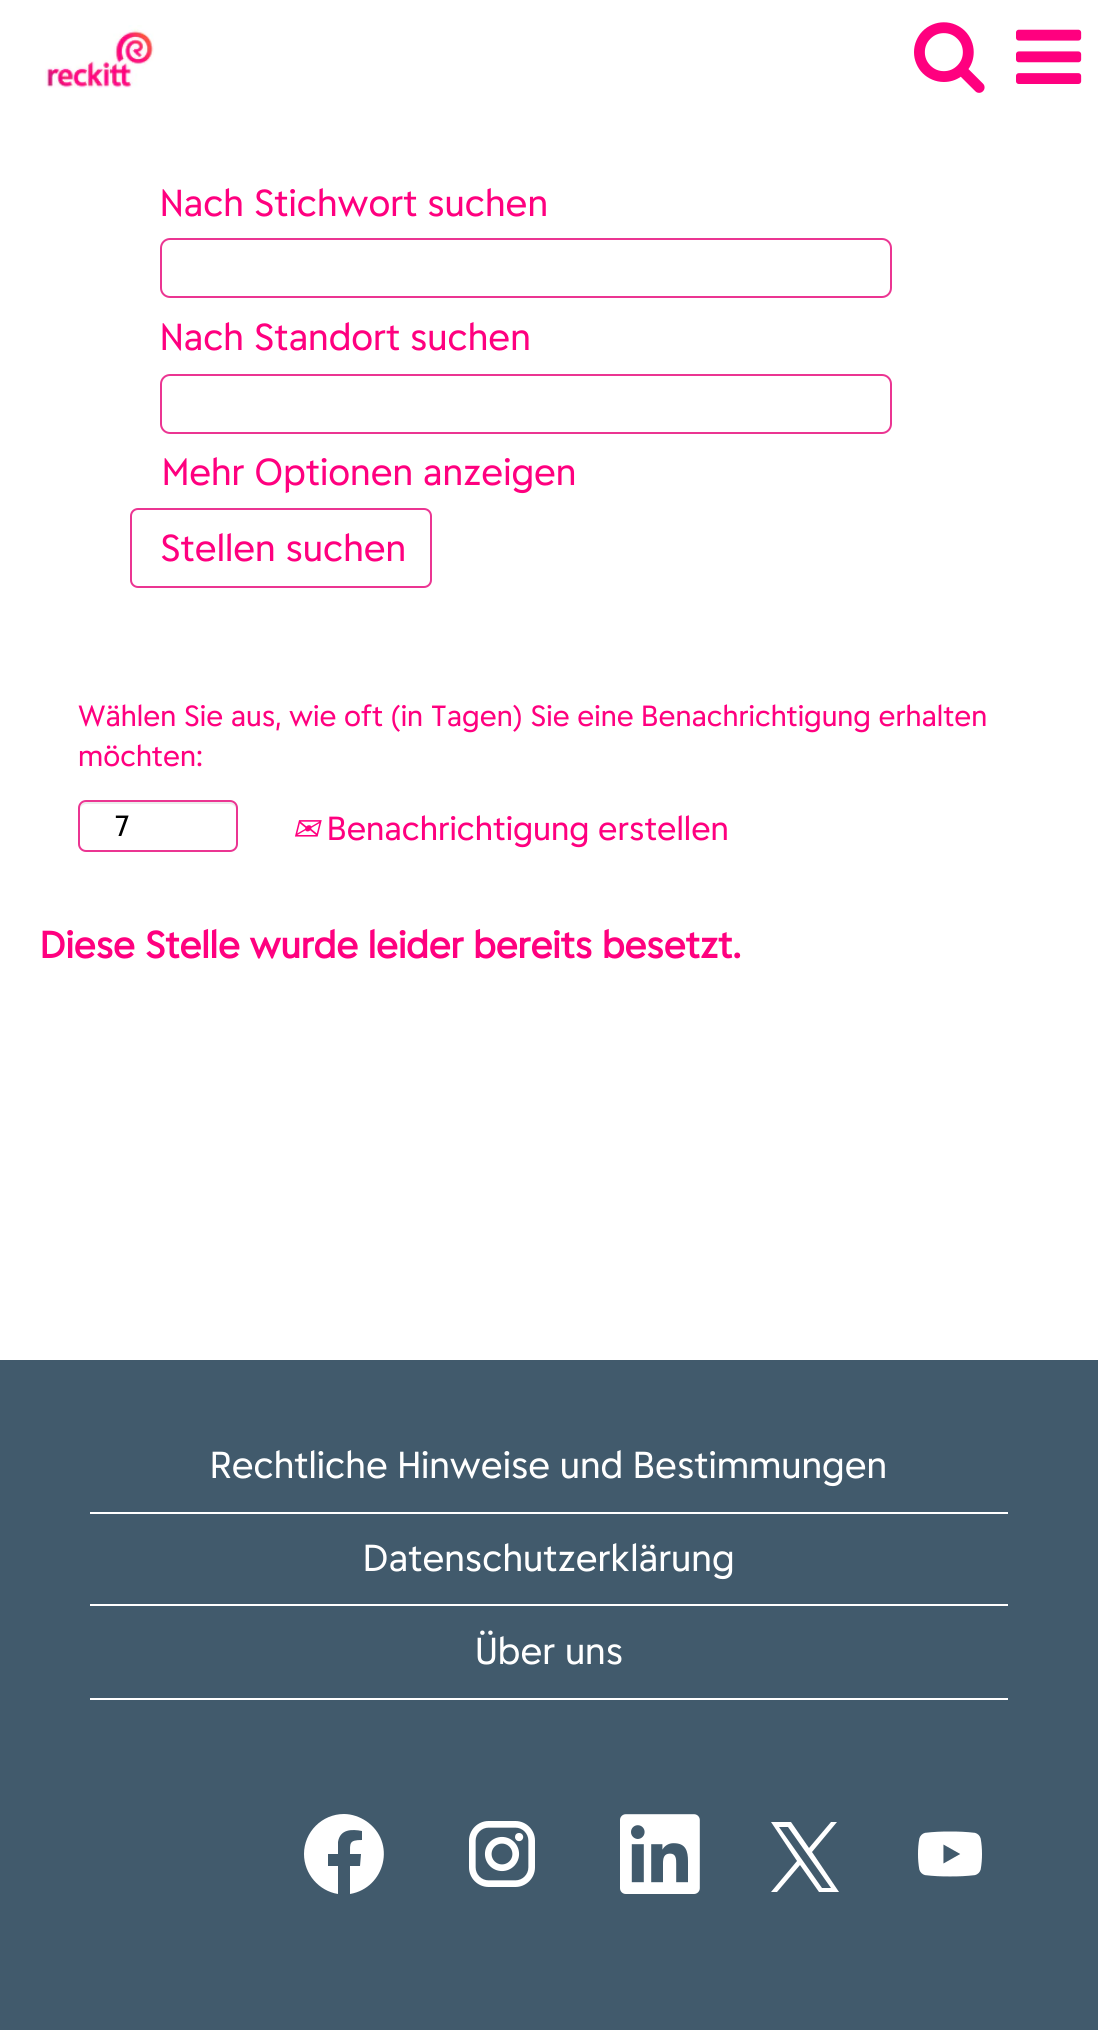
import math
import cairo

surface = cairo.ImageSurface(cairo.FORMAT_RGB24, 1098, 2030)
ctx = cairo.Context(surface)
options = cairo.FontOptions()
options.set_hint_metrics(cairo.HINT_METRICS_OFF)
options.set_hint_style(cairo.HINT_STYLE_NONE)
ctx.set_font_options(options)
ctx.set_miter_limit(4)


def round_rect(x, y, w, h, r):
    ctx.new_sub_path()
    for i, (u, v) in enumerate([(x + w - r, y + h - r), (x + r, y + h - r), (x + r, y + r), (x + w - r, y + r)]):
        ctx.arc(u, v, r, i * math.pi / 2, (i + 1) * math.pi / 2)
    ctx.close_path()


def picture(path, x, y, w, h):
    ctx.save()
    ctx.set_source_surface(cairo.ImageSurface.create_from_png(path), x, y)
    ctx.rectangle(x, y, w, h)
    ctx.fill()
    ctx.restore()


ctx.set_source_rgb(1, 1, 1)
ctx.paint()
picture("img1.png", 45, 25, 109, 63)
picture("img2.png", 914, 22, 71, 71)
picture("img3.png", 1016, 29, 66, 55)
ctx.select_font_face("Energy")
ctx.set_font_size(36)
ctx.set_source_rgb(1, 0, 0.498)
ctx.move_to(160, 216)
ctx.show_text("Nach Stichwort suchen")
round_rect(161, 239, 730, 58, 9)
ctx.set_source_rgb(0.918, 0.208, 0.573)
ctx.stroke()
ctx.set_source_rgb(1, 0, 0.498)
ctx.move_to(160, 350)
ctx.show_text("Nach Standort suchen")
round_rect(161, 375, 730, 58, 9)
ctx.set_source_rgb(0.918, 0.208, 0.573)
ctx.stroke()
ctx.set_source_rgb(1, 0, 0.498)
ctx.move_to(162, 485)
ctx.show_text("Mehr Optionen anzeigen")
round_rect(131, 509, 300, 78, 7)
ctx.set_source_rgb(0.918, 0.208, 0.573)
ctx.stroke()
ctx.set_source_rgb(1, 0, 0.498)
ctx.move_to(160, 561)
ctx.show_text("Stellen suchen")
ctx.set_font_size(28)
ctx.move_to(78, 726)
ctx.show_text("Wählen Sie aus, wie oft (in Tagen) Sie eine Benachrichtigung erhalten")
ctx.move_to(78, 766)
ctx.show_text("möchten:")
ctx.set_source_rgb(0.925, 0.925, 0.925)
ctx.new_path()
ctx.move_to(86, 804)
ctx.line_to(230, 804)
ctx.curve_to(233, 804, 236, 807, 236, 810)
ctx.line_to(236, 808)
ctx.curve_to(236, 805, 233, 802, 230, 802)
ctx.line_to(86, 802)
ctx.curve_to(83, 802, 80, 805, 80, 808)
ctx.line_to(80, 810)
ctx.curve_to(80, 807, 83, 804, 86, 804)
ctx.close_path()
ctx.fill()
round_rect(79, 801, 158, 50, 7)
ctx.set_source_rgb(0.918, 0.208, 0.573)
ctx.stroke()
ctx.set_source_rgb(0, 0, 0)
ctx.move_to(114, 836)
ctx.show_text("7")
ctx.select_font_face("DejaVu Sans", cairo.FONT_SLANT_ITALIC)
ctx.set_font_size(32)
ctx.set_source_rgb(1, 0, 0.498)
ctx.move_to(292, 840)
ctx.show_text("✉")
ctx.select_font_face("Energy")
ctx.move_to(327, 840)
ctx.show_text("Benachrichtigung erstellen")
ctx.select_font_face("Energy", cairo.FONT_SLANT_NORMAL, cairo.FONT_WEIGHT_BOLD)
ctx.set_font_size(36)
ctx.move_to(40, 958)
ctx.show_text("Diese Stelle wurde leider bereits besetzt.")
ctx.set_source_rgb(0.255, 0.353, 0.424)
ctx.rectangle(0, 1360, 1098, 670)
ctx.fill()
ctx.set_source_rgb(1, 1, 1)
ctx.rectangle(90, 1512, 918, 2)
ctx.fill()
ctx.select_font_face("Energy")
ctx.move_to(210, 1478)
ctx.show_text("Rechtliche Hinweise und Bestimmungen")
ctx.rectangle(90, 1604, 918, 2)
ctx.fill()
ctx.move_to(363, 1571)
ctx.show_text("Datenschutzerklärung")
ctx.rectangle(90, 1698, 918, 2)
ctx.fill()
ctx.move_to(475, 1664)
ctx.show_text("Über uns")
ctx.new_path()
ctx.move_to(344, 1814)
ctx.curve_to(322, 1814, 304, 1832, 304, 1854)
ctx.curve_to(304, 1874, 319, 1891, 338, 1894)
ctx.line_to(338, 1866)
ctx.line_to(328, 1866)
ctx.line_to(328, 1854)
ctx.line_to(338, 1854)
ctx.line_to(338, 1842)
ctx.curve_to(340, 1829, 352, 1829, 362, 1831)
ctx.line_to(362, 1840)
ctx.curve_to(349, 1840, 350, 1843, 350, 1854)
ctx.line_to(361, 1854)
ctx.line_to(360, 1866)
ctx.line_to(350, 1866)
ctx.line_to(350, 1894)
ctx.curve_to(385, 1888, 397, 1842, 366, 1821)
ctx.curve_to(360, 1817, 352, 1814, 344, 1814)
ctx.close_path()
ctx.fill()
picture("img4.png", 469, 1821, 66, 66)
picture("img5.png", 620, 1814, 80, 80)
ctx.new_path()
ctx.move_to(812, 1852)
ctx.line_to(837, 1822)
ctx.line_to(831, 1822)
ctx.line_to(809, 1848)
ctx.line_to(791, 1822)
ctx.line_to(771, 1822)
ctx.line_to(797, 1861)
ctx.line_to(771, 1892)
ctx.line_to(777, 1892)
ctx.line_to(800, 1865)
ctx.line_to(819, 1892)
ctx.line_to(839, 1892)
ctx.close_path()
ctx.move_to(803, 1861)
ctx.line_to(779, 1827)
ctx.line_to(788, 1827)
ctx.line_to(831, 1888)
ctx.line_to(822, 1888)
ctx.close_path()
ctx.fill()
picture("img6.png", 918, 1831, 64, 46)
surface.write_to_png("page.png")
